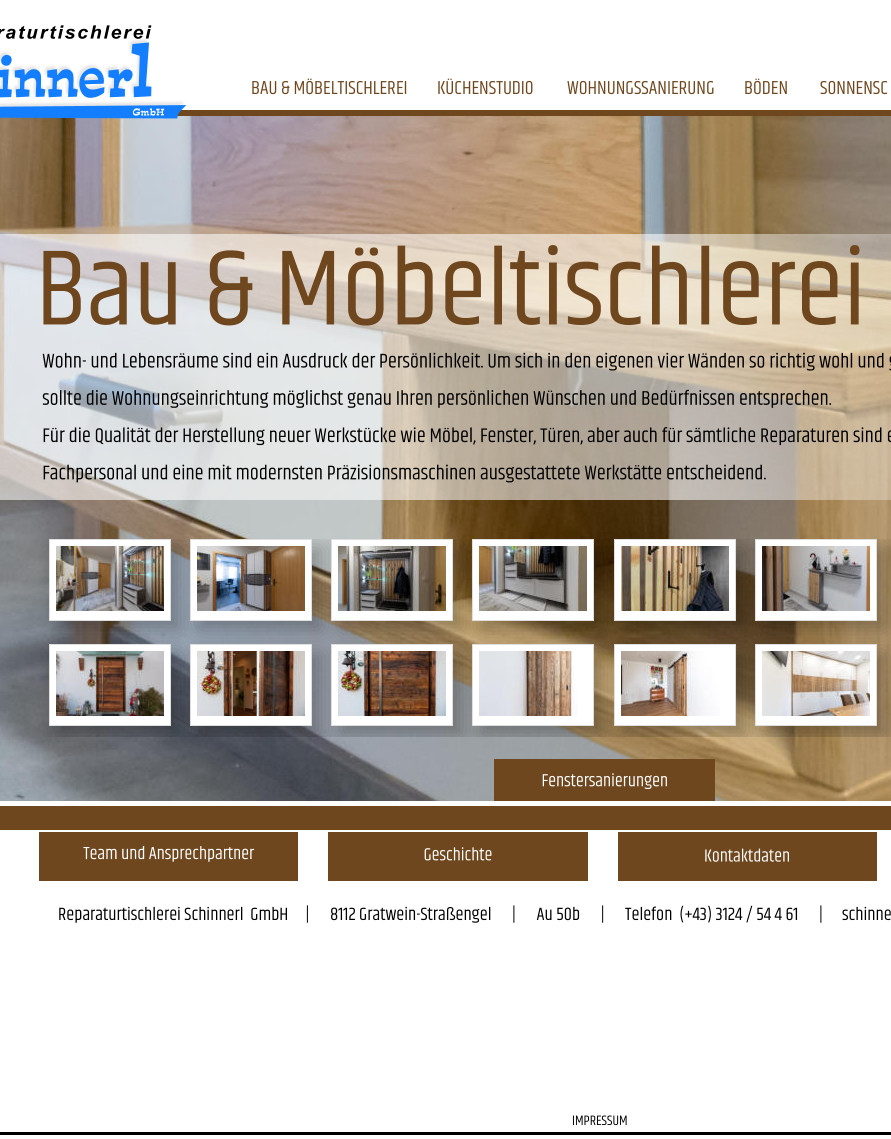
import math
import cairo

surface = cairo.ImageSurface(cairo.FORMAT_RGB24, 891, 1139)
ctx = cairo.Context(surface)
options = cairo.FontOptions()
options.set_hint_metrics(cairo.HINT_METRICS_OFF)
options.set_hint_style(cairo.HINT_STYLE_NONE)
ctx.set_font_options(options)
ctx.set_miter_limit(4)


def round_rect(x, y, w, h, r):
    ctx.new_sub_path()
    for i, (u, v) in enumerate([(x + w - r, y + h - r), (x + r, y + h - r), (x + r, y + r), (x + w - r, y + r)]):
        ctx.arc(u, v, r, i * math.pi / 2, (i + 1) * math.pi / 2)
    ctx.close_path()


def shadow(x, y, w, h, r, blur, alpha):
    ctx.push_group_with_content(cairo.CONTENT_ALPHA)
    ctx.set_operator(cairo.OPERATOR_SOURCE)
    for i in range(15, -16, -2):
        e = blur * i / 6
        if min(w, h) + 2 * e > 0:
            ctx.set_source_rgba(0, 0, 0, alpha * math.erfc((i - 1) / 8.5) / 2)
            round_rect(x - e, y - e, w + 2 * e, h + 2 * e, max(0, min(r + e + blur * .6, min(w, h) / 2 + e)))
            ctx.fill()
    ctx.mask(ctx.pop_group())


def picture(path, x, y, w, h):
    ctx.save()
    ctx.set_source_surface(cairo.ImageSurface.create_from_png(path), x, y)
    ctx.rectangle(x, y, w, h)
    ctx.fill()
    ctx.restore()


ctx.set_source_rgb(1, 1, 1)
ctx.paint()
ctx.set_source_rgb(0.431, 0.278, 0.122)
ctx.rectangle(177, 110, 714, 6)
ctx.fill()
picture("img4.png", 0, 116, 891, 685)
picture("img2.png", 0, 38, 187, 81)
picture("img1.png", 0, 25, 152, 14)
ctx.select_font_face("Khand")
ctx.set_font_size(19.25)
ctx.move_to(251, 94)
ctx.show_text("BAU & MÖBELTISCHLEREI")
ctx.move_to(437, 94)
ctx.show_text("KÜCHENSTUDIO")
ctx.move_to(567, 94)
ctx.show_text("WOHNUNGSSANIERUNG")
ctx.move_to(744, 94)
ctx.show_text("BÖDEN")
ctx.move_to(820, 94)
ctx.show_text("SONNENSC")
picture("img3.png", 132, 108, 33, 8)
picture("img5.png", 0, 234, 891, 266)
ctx.save()
ctx.rectangle(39, 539, 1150, 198)
ctx.clip()
ctx.set_source_rgb(0, 0, 0)
shadow(58, 548, 122, 82, 0, 10.5, 0.3)
ctx.restore()
ctx.set_source_rgb(1, 1, 1)
ctx.rectangle(49.5, 539.5, 121, 81)
ctx.fill_preserve()
ctx.set_source_rgb(0.871, 0.871, 0.871)
ctx.set_line_width(1)
ctx.stroke()
picture("img6.png", 56, 546, 108, 65)
ctx.save()
ctx.rectangle(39, 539, 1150, 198)
ctx.clip()
ctx.set_source_rgb(0, 0, 0)
shadow(199, 548, 122, 82, 0, 10.5, 0.3)
ctx.restore()
ctx.set_source_rgb(1, 1, 1)
ctx.rectangle(190.5, 539.5, 121, 81)
ctx.fill_preserve()
ctx.set_source_rgb(0.871, 0.871, 0.871)
ctx.stroke()
picture("img7.png", 197, 546, 108, 65)
ctx.save()
ctx.rectangle(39, 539, 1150, 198)
ctx.clip()
ctx.set_source_rgb(0, 0, 0)
shadow(340, 548, 122, 82, 0, 10.5, 0.3)
ctx.restore()
ctx.set_source_rgb(1, 1, 1)
ctx.rectangle(331.5, 539.5, 121, 81)
ctx.fill_preserve()
ctx.set_source_rgb(0.871, 0.871, 0.871)
ctx.stroke()
picture("img8.png", 338, 546, 108, 65)
ctx.save()
ctx.rectangle(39, 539, 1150, 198)
ctx.clip()
ctx.set_source_rgb(0, 0, 0)
shadow(481, 548, 122, 82, 0, 10.5, 0.3)
ctx.restore()
ctx.set_source_rgb(1, 1, 1)
ctx.rectangle(472.5, 539.5, 121, 81)
ctx.fill_preserve()
ctx.set_source_rgb(0.871, 0.871, 0.871)
ctx.stroke()
picture("img9.png", 479, 546, 108, 65)
ctx.save()
ctx.rectangle(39, 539, 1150, 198)
ctx.clip()
ctx.set_source_rgb(0, 0, 0)
shadow(623, 548, 122, 82, 0, 10.5, 0.3)
ctx.restore()
ctx.set_source_rgb(1, 1, 1)
ctx.rectangle(614.5, 539.5, 121, 81)
ctx.fill_preserve()
ctx.set_source_rgb(0.871, 0.871, 0.871)
ctx.stroke()
picture("img10.png", 621, 546, 108, 65)
ctx.save()
ctx.rectangle(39, 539, 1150, 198)
ctx.clip()
ctx.set_source_rgb(0, 0, 0)
shadow(764, 548, 122, 82, 0, 10.5, 0.3)
ctx.restore()
ctx.set_source_rgb(1, 1, 1)
ctx.rectangle(755.5, 539.5, 121, 81)
ctx.fill_preserve()
ctx.set_source_rgb(0.871, 0.871, 0.871)
ctx.stroke()
picture("img11.png", 762, 546, 108, 65)
ctx.save()
ctx.rectangle(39, 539, 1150, 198)
ctx.clip()
ctx.set_source_rgb(0, 0, 0)
shadow(58, 653, 122, 82, 0, 10.5, 0.3)
ctx.restore()
ctx.set_source_rgb(1, 1, 1)
ctx.rectangle(49.5, 644.5, 121, 81)
ctx.fill_preserve()
ctx.set_source_rgb(0.871, 0.871, 0.871)
ctx.stroke()
picture("img12.png", 56, 651, 108, 65)
ctx.save()
ctx.rectangle(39, 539, 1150, 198)
ctx.clip()
ctx.set_source_rgb(0, 0, 0)
shadow(199, 653, 122, 82, 0, 10.5, 0.3)
ctx.restore()
ctx.set_source_rgb(1, 1, 1)
ctx.rectangle(190.5, 644.5, 121, 81)
ctx.fill_preserve()
ctx.set_source_rgb(0.871, 0.871, 0.871)
ctx.stroke()
picture("img13.png", 197, 651, 108, 65)
picture("img18.png", 494, 759, 221, 42)
ctx.save()
ctx.rectangle(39, 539, 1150, 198)
ctx.clip()
ctx.set_source_rgb(0, 0, 0)
shadow(340, 653, 122, 82, 0, 10.5, 0.3)
ctx.restore()
ctx.set_source_rgb(1, 1, 1)
ctx.rectangle(331.5, 644.5, 121, 81)
ctx.fill_preserve()
ctx.set_source_rgb(0.871, 0.871, 0.871)
ctx.stroke()
picture("img14.png", 338, 651, 108, 65)
ctx.save()
ctx.rectangle(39, 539, 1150, 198)
ctx.clip()
ctx.set_source_rgb(0, 0, 0)
shadow(481, 653, 122, 82, 0, 10.5, 0.3)
ctx.restore()
ctx.set_source_rgb(1, 1, 1)
ctx.rectangle(472.5, 644.5, 121, 81)
ctx.fill_preserve()
ctx.set_source_rgb(0.871, 0.871, 0.871)
ctx.stroke()
picture("img15.png", 479, 651, 99, 65)
ctx.save()
ctx.rectangle(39, 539, 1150, 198)
ctx.clip()
ctx.set_source_rgb(0, 0, 0)
shadow(623, 653, 122, 82, 0, 10.5, 0.3)
ctx.restore()
ctx.set_source_rgb(1, 1, 1)
ctx.rectangle(614.5, 644.5, 121, 81)
ctx.fill_preserve()
ctx.set_source_rgb(0.871, 0.871, 0.871)
ctx.stroke()
picture("img16.png", 621, 651, 99, 65)
ctx.save()
ctx.rectangle(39, 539, 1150, 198)
ctx.clip()
ctx.set_source_rgb(0, 0, 0)
shadow(764, 653, 122, 82, 0, 10.5, 0.3)
ctx.restore()
ctx.set_source_rgb(1, 1, 1)
ctx.rectangle(755.5, 644.5, 121, 81)
ctx.fill_preserve()
ctx.set_source_rgb(0.871, 0.871, 0.871)
ctx.stroke()
picture("img17.png", 762, 651, 108, 65)
ctx.set_source_rgb(0.431, 0.278, 0.122)
ctx.rectangle(0, 806, 891, 24)
ctx.fill()
picture("img19.png", 39, 832, 259, 49)
picture("img20.png", 328, 832, 260, 49)
picture("img21.png", 618, 832, 259, 49)
ctx.set_font_size(18.2)
ctx.set_source_rgb(0, 0, 0)
ctx.move_to(58, 920)
ctx.show_text("Reparaturtischlerei Schinnerl  GmbH     |      8112 Gratwein-Straßengel      |      Au 50b      |      Telefon  (+43) 3124 / 54 4 61      |")
ctx.move_to(842, 920)
ctx.show_text("schinne")
ctx.set_font_size(14)
ctx.move_to(572, 1125)
ctx.show_text("IMPRESSUM")
ctx.rectangle(0, 1132, 891, 3)
ctx.fill()
surface.write_to_png("page.png")
